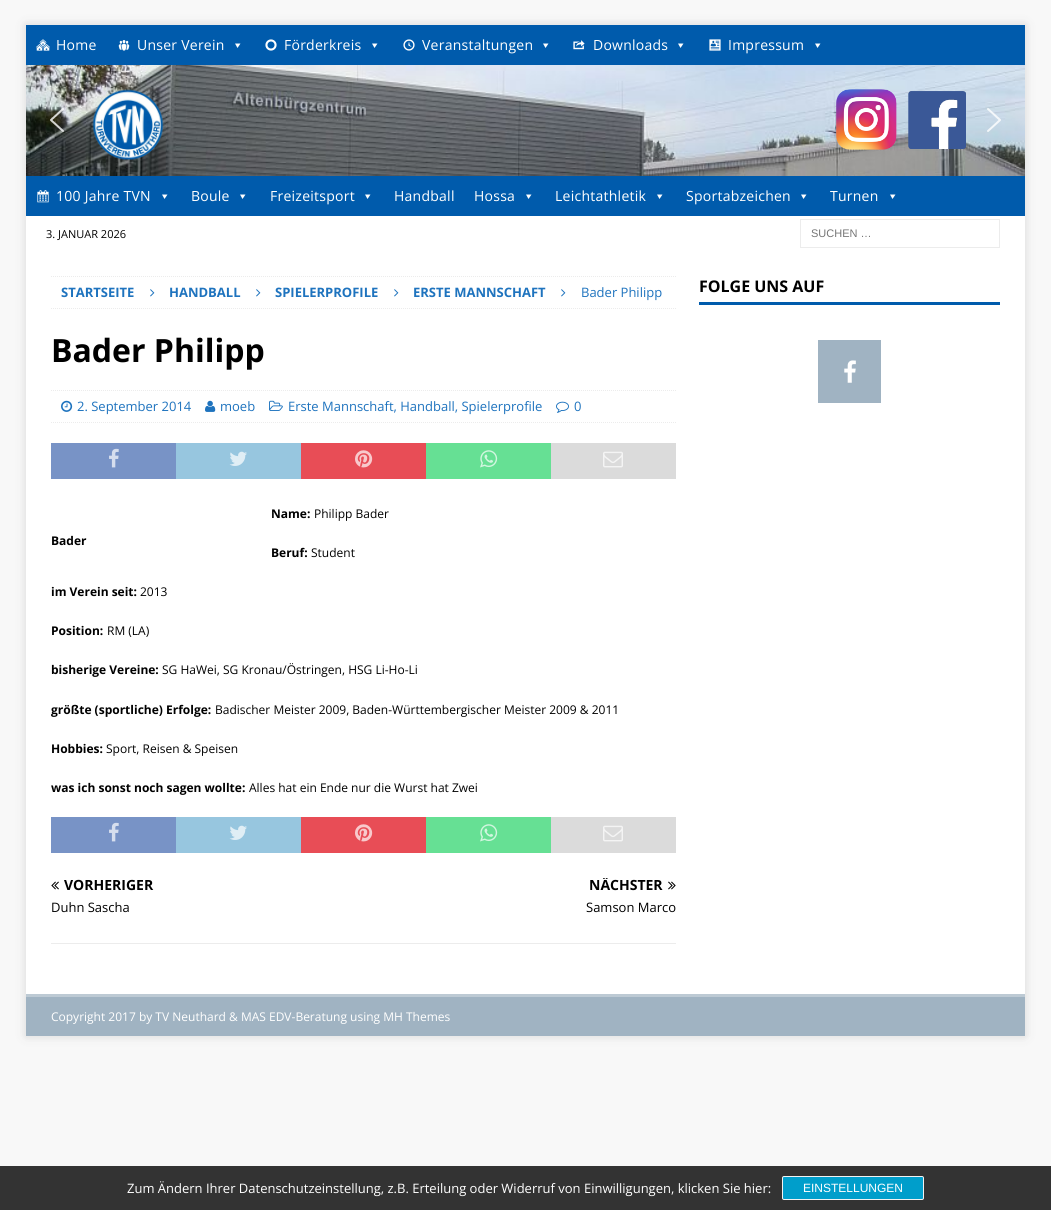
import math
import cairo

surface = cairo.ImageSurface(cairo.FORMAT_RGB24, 1051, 1210)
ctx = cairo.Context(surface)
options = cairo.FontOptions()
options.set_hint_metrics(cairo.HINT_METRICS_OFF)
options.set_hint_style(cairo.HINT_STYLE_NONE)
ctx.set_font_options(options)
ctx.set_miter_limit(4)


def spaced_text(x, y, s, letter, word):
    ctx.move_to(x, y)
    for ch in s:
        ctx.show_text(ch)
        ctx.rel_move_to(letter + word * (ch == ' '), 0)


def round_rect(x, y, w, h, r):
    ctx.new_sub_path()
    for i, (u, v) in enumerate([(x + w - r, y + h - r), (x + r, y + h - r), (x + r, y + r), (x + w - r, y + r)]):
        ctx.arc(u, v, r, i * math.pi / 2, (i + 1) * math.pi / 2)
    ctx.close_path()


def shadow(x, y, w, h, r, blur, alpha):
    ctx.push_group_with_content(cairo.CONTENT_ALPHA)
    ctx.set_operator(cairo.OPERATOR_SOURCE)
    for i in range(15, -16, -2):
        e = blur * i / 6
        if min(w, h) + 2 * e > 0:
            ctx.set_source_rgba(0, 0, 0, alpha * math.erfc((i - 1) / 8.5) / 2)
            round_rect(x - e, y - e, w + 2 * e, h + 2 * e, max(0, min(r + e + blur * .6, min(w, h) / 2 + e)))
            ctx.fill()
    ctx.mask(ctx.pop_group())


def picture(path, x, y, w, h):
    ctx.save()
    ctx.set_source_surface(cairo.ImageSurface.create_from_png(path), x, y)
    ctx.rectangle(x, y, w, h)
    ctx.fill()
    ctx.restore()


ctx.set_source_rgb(0.969, 0.969, 0.969)
ctx.paint()
ctx.set_source_rgb(0.196, 0.196, 0.196)
shadow(26, 25, 999, 1011, 0, 5, 0.17)
ctx.set_source_rgb(0, 0.357, 0.675)
ctx.rectangle(26, 25, 999, 40)
ctx.fill()
picture("img1.png", 36, 39, 14, 12)
ctx.select_font_face("Open Sans")
ctx.set_font_size(14)
ctx.set_source_rgb(1, 1, 1)
spaced_text(56, 50, "Home", 0.25, 0)
picture("img2.png", 118, 40, 12, 11)
spaced_text(137, 50, "Unser Verein", 0.25, 0)
ctx.new_path()
ctx.move_to(240.5, 43.5)
ctx.line_to(237.5, 48)
ctx.line_to(235, 43.5)
ctx.close_path()
ctx.fill()
picture("img3.png", 265, 39, 12, 12)
spaced_text(284, 50, "Förderkreis", 0.25, 0)
ctx.new_path()
ctx.move_to(377.5, 43.5)
ctx.line_to(374.5, 48)
ctx.line_to(372, 43.5)
ctx.close_path()
ctx.fill()
picture("img4.png", 403, 39, 12, 12)
spaced_text(422, 50, "Veranstaltungen", 0.25, 0)
ctx.new_path()
ctx.move_to(548.5, 43.5)
ctx.line_to(545.5, 48)
ctx.line_to(543, 43.5)
ctx.close_path()
ctx.fill()
picture("img5.png", 573, 40, 12, 10)
spaced_text(593, 50, "Downloads", 0.25, 0)
ctx.new_path()
ctx.move_to(683.5, 43.5)
ctx.line_to(680.5, 48)
ctx.line_to(678, 43.5)
ctx.close_path()
ctx.fill()
picture("img6.png", 709, 39, 12, 12)
spaced_text(728, 50, "Impressum", 0.25, 0)
ctx.new_path()
ctx.move_to(820.5, 43.5)
ctx.line_to(817.5, 48)
ctx.line_to(815, 43.5)
ctx.close_path()
ctx.fill()
picture("img7.png", 26, 65, 999, 111)
picture("img8.png", 92, 89, 72, 71)
picture("img9.png", 836, 89, 61, 61)
picture("img10.png", 908, 91, 58, 58)
picture("img11.png", 50, 108, 14, 24)
picture("img12.png", 987, 108, 14, 24)
ctx.set_source_rgb(0, 0.357, 0.675)
ctx.rectangle(26, 176, 999, 40)
ctx.fill()
picture("img13.png", 37, 190, 12, 13)
ctx.set_source_rgb(1, 1, 1)
spaced_text(56, 201, "100 Jahre TVN", 0.25, 0)
ctx.new_path()
ctx.move_to(167.5, 194.5)
ctx.line_to(164.5, 199)
ctx.line_to(162, 194.5)
ctx.close_path()
ctx.fill()
spaced_text(191, 201, "Boule", 0.25, 0)
ctx.new_path()
ctx.move_to(245.5, 194.5)
ctx.line_to(242.5, 199)
ctx.line_to(240, 194.5)
ctx.close_path()
ctx.fill()
spaced_text(270, 201, "Freizeitsport", 0.25, 0)
ctx.new_path()
ctx.move_to(370.5, 194.5)
ctx.line_to(367.5, 199)
ctx.line_to(365, 194.5)
ctx.close_path()
ctx.fill()
spaced_text(394, 201, "Handball", 0.25, 0)
spaced_text(474, 201, "Hossa", 0.25, 0)
ctx.new_path()
ctx.move_to(531.5, 194.5)
ctx.line_to(528.5, 199)
ctx.line_to(526, 194.5)
ctx.close_path()
ctx.fill()
spaced_text(555, 201, "Leichtathletik", 0.25, 0)
ctx.new_path()
ctx.move_to(662.5, 194.5)
ctx.line_to(659.5, 199)
ctx.line_to(657, 194.5)
ctx.close_path()
ctx.fill()
spaced_text(686, 201, "Sportabzeichen", 0.25, 0)
ctx.new_path()
ctx.move_to(806.5, 194.5)
ctx.line_to(803.5, 199)
ctx.line_to(801, 194.5)
ctx.close_path()
ctx.fill()
spaced_text(830, 201, "Turnen", 0.25, 0)
ctx.new_path()
ctx.move_to(895.5, 194.5)
ctx.line_to(892.5, 199)
ctx.line_to(890, 194.5)
ctx.close_path()
ctx.fill()
ctx.rectangle(26, 216, 999, 778)
ctx.fill()
ctx.set_font_size(11)
ctx.set_source_rgb(0, 0, 0)
ctx.move_to(46, 238)
ctx.show_text("3. JANUAR 2026")
ctx.rectangle(800.5, 219.5, 199, 28)
ctx.set_source_rgb(0.922, 0.922, 0.922)
ctx.set_line_width(1)
ctx.stroke()
ctx.select_font_face("Liberation Sans")
ctx.set_source_rgb(0.459, 0.459, 0.459)
ctx.move_to(811, 237)
ctx.show_text("SUCHEN …")
ctx.new_path()
ctx.move_to(51, 276.5)
ctx.line_to(676, 276.5)
ctx.set_source_rgb(0.922, 0.922, 0.922)
ctx.set_dash([1, 1])
ctx.stroke()
ctx.new_path()
ctx.move_to(51, 308.5)
ctx.line_to(676, 308.5)
ctx.stroke()
ctx.select_font_face("Open Sans", cairo.FONT_SLANT_NORMAL, cairo.FONT_WEIGHT_BOLD)
ctx.set_font_size(13)
ctx.set_source_rgb(0.118, 0.451, 0.745)
ctx.move_to(61, 297)
ctx.show_text("STARTSEITE")
picture("img14.png", 150, 289, 5, 8)
ctx.move_to(169, 297)
ctx.show_text("HANDBALL")
picture("img14.png", 256, 289, 5, 8)
ctx.move_to(275, 297)
ctx.show_text("SPIELERPROFILE")
picture("img14.png", 394, 289, 5, 8)
ctx.move_to(413, 297)
ctx.show_text("ERSTE MANNSCHAFT")
picture("img14.png", 561, 289, 5, 8)
ctx.select_font_face("Open Sans")
ctx.move_to(581, 297)
ctx.show_text("Bader Philipp")
ctx.select_font_face("Open Sans", cairo.FONT_SLANT_NORMAL, cairo.FONT_WEIGHT_BOLD)
ctx.set_font_size(32)
ctx.set_source_rgb(0, 0, 0)
ctx.move_to(51, 362)
ctx.show_text("Bader Philipp")
ctx.new_path()
ctx.move_to(51, 390.5)
ctx.line_to(676, 390.5)
ctx.set_source_rgb(0.922, 0.922, 0.922)
ctx.stroke()
ctx.new_path()
ctx.move_to(51, 422.5)
ctx.line_to(676, 422.5)
ctx.stroke()
picture("img15.png", 61, 400, 12, 12)
ctx.select_font_face("Open Sans")
ctx.set_font_size(13)
ctx.set_source_rgb(0.118, 0.451, 0.745)
ctx.move_to(77, 411)
ctx.show_text("2. September 2014")
picture("img16.png", 205, 400, 11, 12)
ctx.move_to(220, 411)
ctx.show_text("moeb")
picture("img17.png", 269, 400, 14, 11)
ctx.move_to(288, 411)
ctx.show_text("Erste Mannschaft, Handball, Spielerprofile")
picture("img18.png", 556, 401, 13, 12)
ctx.move_to(574, 411)
ctx.show_text("0")
ctx.set_source_rgb(0.471, 0.576, 0.776)
ctx.rectangle(51, 443, 125, 36)
ctx.fill()
picture("img19.png", 109, 448, 10, 20)
ctx.set_source_rgb(0.592, 0.776, 0.875)
ctx.rectangle(176, 443, 125, 36)
ctx.fill()
picture("img20.png", 229, 451, 18, 15)
ctx.set_source_rgb(0.91, 0.302, 0.337)
ctx.rectangle(301, 443, 125, 36)
ctx.fill()
picture("img21.png", 355, 450, 18, 18)
ctx.set_source_rgb(0.4, 0.878, 0.58)
ctx.rectangle(426, 443, 125, 36)
ctx.fill()
picture("img22.png", 480, 450, 18, 18)
ctx.set_source_rgb(0.859, 0.859, 0.859)
ctx.rectangle(551, 443, 125, 36)
ctx.fill()
picture("img23.png", 603, 451, 20, 17)
ctx.select_font_face("Open Sans", cairo.FONT_SLANT_NORMAL, cairo.FONT_WEIGHT_BOLD)
ctx.set_font_size(12)
ctx.set_source_rgb(0, 0, 0)
ctx.move_to(271, 518)
ctx.show_text("Name:")
ctx.select_font_face("Open Sans")
ctx.move_to(314, 518)
ctx.show_text("Philipp Bader")
ctx.select_font_face("Open Sans", cairo.FONT_SLANT_NORMAL, cairo.FONT_WEIGHT_BOLD)
ctx.move_to(51, 545)
ctx.show_text("Bader")
ctx.move_to(271, 557)
ctx.show_text("Beruf:")
ctx.select_font_face("Open Sans")
ctx.move_to(311, 557)
ctx.show_text("Student")
ctx.select_font_face("Open Sans", cairo.FONT_SLANT_NORMAL, cairo.FONT_WEIGHT_BOLD)
ctx.move_to(51, 596)
ctx.show_text("im Verein seit:")
ctx.select_font_face("Open Sans")
ctx.move_to(140, 596)
ctx.show_text("2013")
ctx.select_font_face("Open Sans", cairo.FONT_SLANT_NORMAL, cairo.FONT_WEIGHT_BOLD)
ctx.move_to(51, 635)
ctx.show_text("Position:")
ctx.select_font_face("Open Sans")
ctx.move_to(107, 635)
ctx.show_text("RM (LA)")
ctx.select_font_face("Open Sans", cairo.FONT_SLANT_NORMAL, cairo.FONT_WEIGHT_BOLD)
ctx.move_to(51, 674)
ctx.show_text("bisherige Vereine:")
ctx.select_font_face("Open Sans")
ctx.move_to(162, 674)
ctx.show_text("SG HaWei, SG Kronau/Östringen, HSG Li-Ho-Li")
ctx.select_font_face("Open Sans", cairo.FONT_SLANT_NORMAL, cairo.FONT_WEIGHT_BOLD)
ctx.move_to(51, 714)
ctx.show_text("größte (sportliche) Erfolge:")
ctx.select_font_face("Open Sans")
ctx.move_to(215, 714)
ctx.show_text("Badischer Meister 2009, Baden-Württembergischer Meister 2009 & 2011")
ctx.select_font_face("Open Sans", cairo.FONT_SLANT_NORMAL, cairo.FONT_WEIGHT_BOLD)
ctx.move_to(51, 753)
ctx.show_text("Hobbies:")
ctx.select_font_face("Open Sans")
ctx.move_to(106, 753)
ctx.show_text("Sport, Reisen & Speisen")
ctx.select_font_face("Open Sans", cairo.FONT_SLANT_NORMAL, cairo.FONT_WEIGHT_BOLD)
ctx.move_to(51, 792)
ctx.show_text("was ich sonst noch sagen wollte:")
ctx.select_font_face("Open Sans")
ctx.move_to(249, 792)
ctx.show_text("Alles hat ein Ende nur die Wurst hat Zwei")
ctx.set_source_rgb(0.471, 0.576, 0.776)
ctx.rectangle(51, 817, 125, 36)
ctx.fill()
picture("img19.png", 109, 822, 10, 20)
ctx.set_source_rgb(0.592, 0.776, 0.875)
ctx.rectangle(176, 817, 125, 36)
ctx.fill()
picture("img20.png", 229, 825, 18, 15)
ctx.set_source_rgb(0.91, 0.302, 0.337)
ctx.rectangle(301, 817, 125, 36)
ctx.fill()
picture("img21.png", 355, 824, 18, 18)
ctx.set_source_rgb(0.4, 0.878, 0.58)
ctx.rectangle(426, 817, 125, 36)
ctx.fill()
picture("img22.png", 480, 824, 18, 18)
ctx.set_source_rgb(0.859, 0.859, 0.859)
ctx.rectangle(551, 817, 125, 36)
ctx.fill()
picture("img23.png", 603, 825, 20, 17)
ctx.set_source_rgb(0.922, 0.922, 0.922)
ctx.rectangle(51, 943, 625, 1)
ctx.fill()
picture("img24.png", 51, 881, 8, 9)
ctx.select_font_face("Open Sans", cairo.FONT_SLANT_NORMAL, cairo.FONT_WEIGHT_BOLD)
ctx.set_font_size(14)
ctx.set_source_rgb(0, 0, 0)
ctx.move_to(64, 890)
ctx.show_text("VORHERIGER")
ctx.select_font_face("Open Sans")
ctx.set_font_size(13)
ctx.move_to(51, 912)
ctx.show_text("Duhn Sascha")
ctx.save()
ctx.rectangle(371, 878, 305, 14)
ctx.clip()
ctx.select_font_face("Open Sans", cairo.FONT_SLANT_NORMAL, cairo.FONT_WEIGHT_BOLD)
ctx.set_font_size(14)
ctx.move_to(589, 890)
ctx.show_text("NÄCHSTER")
ctx.restore()
picture("img25.png", 668, 881, 8, 9)
ctx.move_to(586, 912)
ctx.show_text("Samson Marco")
ctx.set_source_rgb(0, 0.357, 0.675)
ctx.rectangle(699, 302, 301, 3)
ctx.fill()
ctx.select_font_face("Open Sans", cairo.FONT_SLANT_NORMAL, cairo.FONT_WEIGHT_BOLD)
ctx.set_font_size(16)
ctx.set_source_rgb(0, 0, 0)
ctx.move_to(699, 292)
ctx.show_text("FOLGE UNS AUF")
ctx.set_source_rgb(0.627, 0.702, 0.761)
ctx.rectangle(818, 340, 63, 63)
ctx.fill()
picture("img26.png", 844, 360, 12, 23)
ctx.rectangle(26, 997, 999, 39)
ctx.fill()
ctx.set_source_rgb(0.741, 0.792, 0.831)
ctx.rectangle(26, 994, 999, 3)
ctx.fill()
ctx.select_font_face("Open Sans")
ctx.set_font_size(12)
ctx.set_source_rgb(1, 1, 1)
ctx.move_to(51, 1021)
ctx.show_text("Copyright 2017 by TV Neuthard & MAS EDV-Beratung using MH Themes")
ctx.set_source_rgb(0.2, 0.2, 0.2)
ctx.rectangle(0, 1166, 1051, 44)
ctx.fill()
ctx.set_font_size(13)
ctx.set_source_rgb(1, 1, 1)
ctx.move_to(127, 1193)
ctx.show_text("Zum Ändern Ihrer Datenschutzeinstellung, z.B. Erteilung oder Widerruf von Einwilligungen, klicken Sie hier:")
ctx.set_source_rgb(0, 0.62, 0.796)
round_rect(782.5, 1176.5, 141, 23, 1.5)
ctx.fill_preserve()
ctx.set_source_rgb(0.953, 0.953, 0.953)
ctx.set_dash([])
ctx.stroke()
ctx.select_font_face("Liberation Sans")
ctx.set_font_size(12)
ctx.set_source_rgb(1, 1, 1)
ctx.move_to(803, 1192)
ctx.show_text("EINSTELLUNGEN")
surface.write_to_png("page.png")
